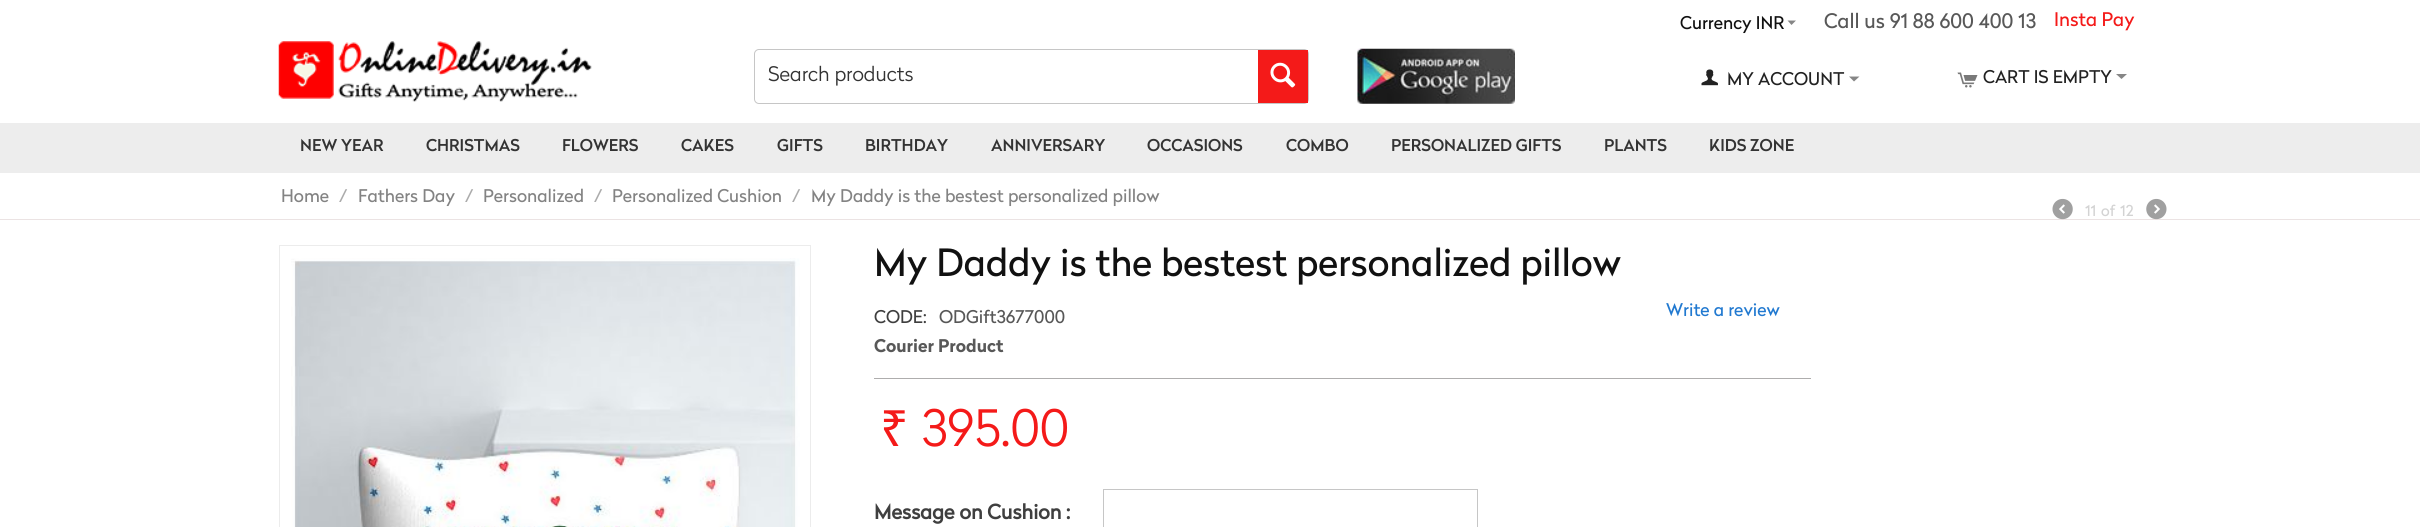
import math
import cairo

surface = cairo.ImageSurface(cairo.FORMAT_RGB24, 2420, 527)
ctx = cairo.Context(surface)
options = cairo.FontOptions()
options.set_hint_metrics(cairo.HINT_METRICS_OFF)
options.set_hint_style(cairo.HINT_STYLE_NONE)
ctx.set_font_options(options)
ctx.set_miter_limit(4)


def round_rect(x, y, w, h, r):
    ctx.new_sub_path()
    for i, (u, v) in enumerate([(x + w - r, y + h - r), (x + r, y + h - r), (x + r, y + r), (x + w - r, y + r)]):
        ctx.arc(u, v, r, i * math.pi / 2, (i + 1) * math.pi / 2)
    ctx.close_path()


def picture(path, x, y, w, h):
    ctx.save()
    ctx.set_source_surface(cairo.ImageSurface.create_from_png(path), x, y)
    ctx.rectangle(x, y, w, h)
    ctx.fill()
    ctx.restore()


ctx.set_source_rgb(1, 1, 1)
ctx.paint()
ctx.select_font_face("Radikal")
ctx.set_font_size(17.5)
ctx.set_source_rgb(0.067, 0.067, 0.067)
ctx.move_to(1680, 29)
ctx.show_text("Currency INR")
ctx.set_source_rgb(0.525, 0.525, 0.525)
ctx.new_path()
ctx.move_to(1791.5, 25)
ctx.line_to(1787.5, 20.5)
ctx.line_to(1796, 20.5)
ctx.close_path()
ctx.fill()
ctx.set_font_size(20)
ctx.set_source_rgb(0.345, 0.345, 0.345)
ctx.move_to(1824, 28)
ctx.show_text("Call us 91 88 600 400 13")
ctx.set_font_size(18.75)
ctx.set_source_rgb(0.957, 0.102, 0.098)
ctx.move_to(2054, 26)
ctx.show_text("Insta Pay")
picture("img1.png", 278, 41, 314, 61)
round_rect(754.5, 49.5, 554, 54, 4.5)
ctx.set_source_rgb(0.776, 0.776, 0.776)
ctx.set_line_width(1)
ctx.stroke()
ctx.select_font_face("Radikal Light")
ctx.set_font_size(20)
ctx.set_source_rgb(0.2, 0.2, 0.2)
ctx.move_to(768, 81)
ctx.show_text("Search products")
ctx.set_source_rgb(0.957, 0.102, 0.098)
ctx.rectangle(1258, 50, 50, 53)
ctx.fill()
picture("img2.png", 1270, 62, 26, 26)
picture("img3.png", 1357, 48, 158, 56)
picture("img4.png", 1701, 69, 17, 17)
ctx.select_font_face("Radikal")
ctx.set_font_size(17.5)
ctx.set_source_rgb(0.133, 0.133, 0.133)
ctx.move_to(1727, 85)
ctx.show_text("MY ACCOUNT")
ctx.set_source_rgb(0.525, 0.525, 0.525)
ctx.new_path()
ctx.move_to(1854, 81.5)
ctx.line_to(1849, 76.5)
ctx.line_to(1859.5, 76.5)
ctx.close_path()
ctx.fill()
picture("img5.png", 1957, 72, 21, 16)
ctx.set_source_rgb(0.133, 0.133, 0.133)
ctx.move_to(1983, 83)
ctx.show_text("CART IS EMPTY")
ctx.set_source_rgb(0.525, 0.525, 0.525)
ctx.new_path()
ctx.move_to(2121.5, 79)
ctx.line_to(2116, 74)
ctx.line_to(2127, 74)
ctx.close_path()
ctx.fill()
ctx.set_source_rgb(0.929, 0.929, 0.929)
ctx.rectangle(0, 123, 2420, 50)
ctx.fill()
ctx.select_font_face("Radikal Medium")
ctx.set_font_size(16.25)
ctx.set_source_rgb(0.2, 0.2, 0.2)
ctx.move_to(300, 151)
ctx.show_text("NEW YEAR")
ctx.move_to(426, 151)
ctx.show_text("CHRISTMAS")
ctx.move_to(562, 151)
ctx.show_text("FLOWERS")
ctx.move_to(681, 151)
ctx.show_text("CAKES")
ctx.move_to(777, 151)
ctx.show_text("GIFTS")
ctx.move_to(865, 151)
ctx.show_text("BIRTHDAY")
ctx.move_to(991, 151)
ctx.show_text("ANNIVERSARY")
ctx.move_to(1147, 151)
ctx.show_text("OCCASIONS")
ctx.move_to(1286, 151)
ctx.show_text("COMBO")
ctx.move_to(1391, 151)
ctx.show_text("PERSONALIZED GIFTS")
ctx.move_to(1604, 151)
ctx.show_text("PLANTS")
ctx.move_to(1709, 151)
ctx.show_text("KIDS ZONE")
ctx.set_source_rgb(0.918, 0.89, 0.89)
ctx.rectangle(0, 219, 2420, 1)
ctx.fill()
ctx.select_font_face("Radikal")
ctx.set_font_size(17.5)
ctx.set_source_rgb(0.514, 0.514, 0.514)
ctx.move_to(281, 202)
ctx.show_text("Home")
ctx.set_source_rgb(0.675, 0.675, 0.675)
ctx.move_to(339, 202)
ctx.show_text("/")
ctx.set_source_rgb(0.514, 0.514, 0.514)
ctx.move_to(358, 202)
ctx.show_text("Fathers Day")
ctx.set_source_rgb(0.675, 0.675, 0.675)
ctx.move_to(465, 202)
ctx.show_text("/")
ctx.set_source_rgb(0.514, 0.514, 0.514)
ctx.move_to(483, 202)
ctx.show_text("Personalized")
ctx.set_source_rgb(0.675, 0.675, 0.675)
ctx.move_to(594, 202)
ctx.show_text("/")
ctx.set_source_rgb(0.514, 0.514, 0.514)
ctx.move_to(612, 202)
ctx.show_text("Personalized Cushion")
ctx.set_source_rgb(0.675, 0.675, 0.675)
ctx.move_to(792, 202)
ctx.show_text("/")
ctx.set_source_rgb(0.514, 0.514, 0.514)
ctx.move_to(811, 202)
ctx.show_text("My Daddy is the bestest personalized pillow")
picture("img6.png", 2052, 198, 21, 22)
ctx.set_font_size(15)
ctx.set_source_rgb(0.827, 0.827, 0.827)
ctx.move_to(2085, 216)
ctx.show_text("11")
ctx.move_to(2101, 216)
ctx.show_text("of")
ctx.move_to(2120, 216)
ctx.show_text("12")
picture("img7.png", 2146, 198, 21, 22)
ctx.rectangle(279.5, 245.5, 531, 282)
ctx.set_source_rgb(0.925, 0.925, 0.925)
ctx.stroke()
picture("img8.png", 291, 258, 509, 269)
ctx.set_source_rgb(0.682, 0.678, 0.678)
ctx.rectangle(874, 378, 937, 1)
ctx.fill()
ctx.set_font_size(37.5)
ctx.set_source_rgb(0.067, 0.067, 0.067)
ctx.move_to(874, 276)
ctx.show_text("My Daddy is the bestest personalized pillow")
ctx.set_font_size(17.5)
ctx.set_source_rgb(0.247, 0.247, 0.247)
ctx.move_to(874, 323)
ctx.show_text("CODE:")
ctx.set_source_rgb(0.345, 0.345, 0.345)
ctx.move_to(939, 323)
ctx.show_text("ODGift3677000")
ctx.set_source_rgb(0.129, 0.475, 0.816)
ctx.move_to(1666, 316)
ctx.show_text("Write a review")
ctx.select_font_face("Radikal", cairo.FONT_SLANT_NORMAL, cairo.FONT_WEIGHT_BOLD)
ctx.set_source_rgb(0.345, 0.345, 0.345)
ctx.move_to(874, 352)
ctx.show_text("Courier Product")
ctx.select_font_face("Noto Sans")
ctx.set_font_size(50)
ctx.set_source_rgb(0.957, 0.102, 0.098)
ctx.move_to(880, 446)
ctx.show_text("₹")
ctx.select_font_face("Radikal Light")
ctx.move_to(921, 446)
ctx.show_text("395.00")
ctx.select_font_face("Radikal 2", cairo.FONT_SLANT_NORMAL, cairo.FONT_WEIGHT_BOLD)
ctx.set_font_size(20)
ctx.set_source_rgb(0.247, 0.247, 0.247)
ctx.move_to(874, 519)
ctx.show_text("Message on Cushion :")
ctx.rectangle(1103.5, 489.5, 374, 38)
ctx.set_source_rgb(0.776, 0.776, 0.776)
ctx.stroke()
surface.write_to_png("page.png")
